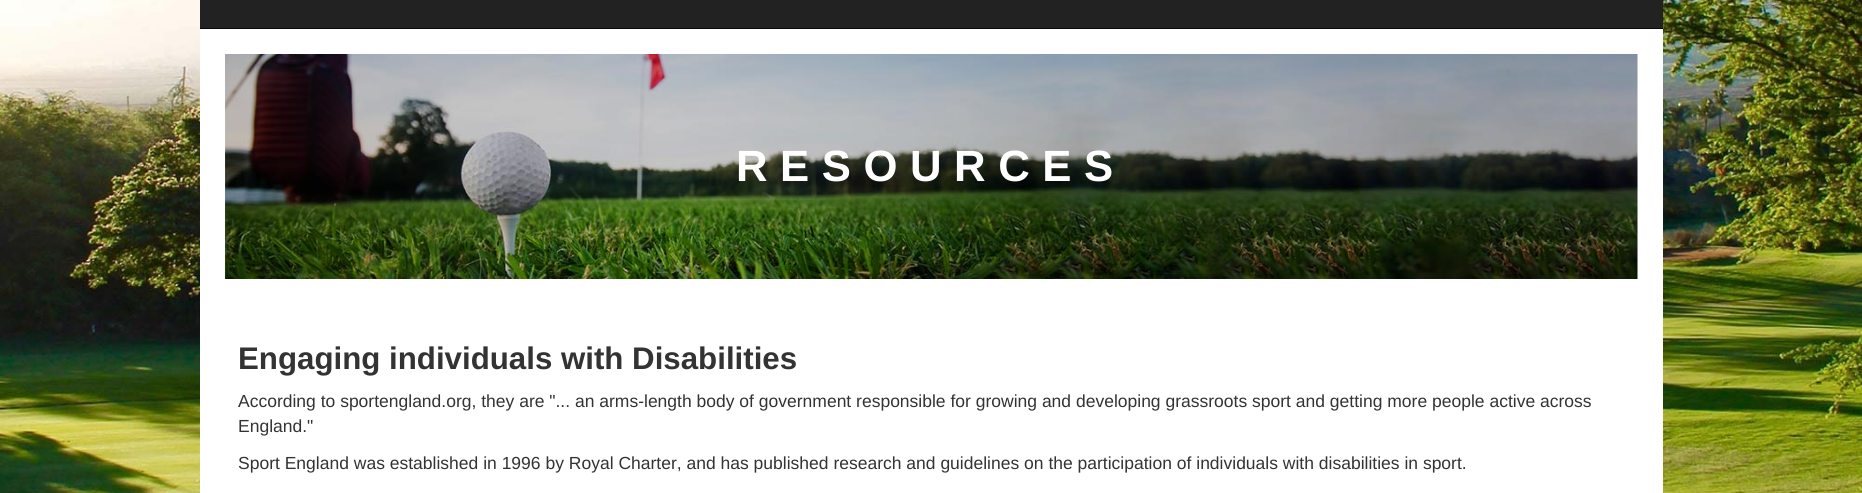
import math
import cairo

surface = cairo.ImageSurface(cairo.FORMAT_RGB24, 1862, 493)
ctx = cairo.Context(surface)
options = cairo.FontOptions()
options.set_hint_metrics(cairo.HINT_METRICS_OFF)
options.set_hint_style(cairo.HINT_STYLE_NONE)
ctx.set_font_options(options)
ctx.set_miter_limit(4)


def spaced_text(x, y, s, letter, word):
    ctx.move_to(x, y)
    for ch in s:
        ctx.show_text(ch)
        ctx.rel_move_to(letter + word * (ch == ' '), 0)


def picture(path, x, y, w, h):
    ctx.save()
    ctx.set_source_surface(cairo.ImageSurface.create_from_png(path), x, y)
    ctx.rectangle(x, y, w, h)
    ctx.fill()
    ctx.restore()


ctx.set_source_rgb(1, 1, 1)
ctx.paint()
picture("img1.png", 0, 0, 1862, 493)
ctx.set_source_rgb(1, 1, 1)
ctx.rectangle(200, 29, 1463, 464)
ctx.fill()
ctx.set_source_rgb(0.133, 0.133, 0.133)
ctx.rectangle(200, 0, 1463, 28)
ctx.fill()
ctx.set_source_rgb(0.031, 0.031, 0.031)
ctx.rectangle(200, 28, 1463, 1)
ctx.fill()
picture("img2.png", 225, 54, 1413, 225)
ctx.select_font_face("Liberation Sans", cairo.FONT_SLANT_NORMAL, cairo.FONT_WEIGHT_BOLD)
ctx.set_font_size(43.75)
ctx.set_source_rgb(1, 1, 1)
spaced_text(736, 181, "RESOURCES", 12.5, 0)
ctx.set_font_size(31.25)
ctx.set_source_rgb(0.2, 0.2, 0.2)
ctx.move_to(238, 369)
ctx.show_text("Engaging individuals with Disabilities")
ctx.select_font_face("Liberation Sans")
ctx.set_font_size(17.5)
ctx.move_to(238, 407)
ctx.show_text("According to sportengland.org, they are \"... an arms-length body of government responsible for growing and developing grassroots sport and getting more people active across")
ctx.move_to(238, 432)
ctx.show_text("England.\"")
ctx.move_to(238, 469)
ctx.show_text("Sport England was established in 1996 by Royal Charter, and has published research and guidelines on the participation of individuals with disabilities in sport.")
surface.write_to_png("page.png")
